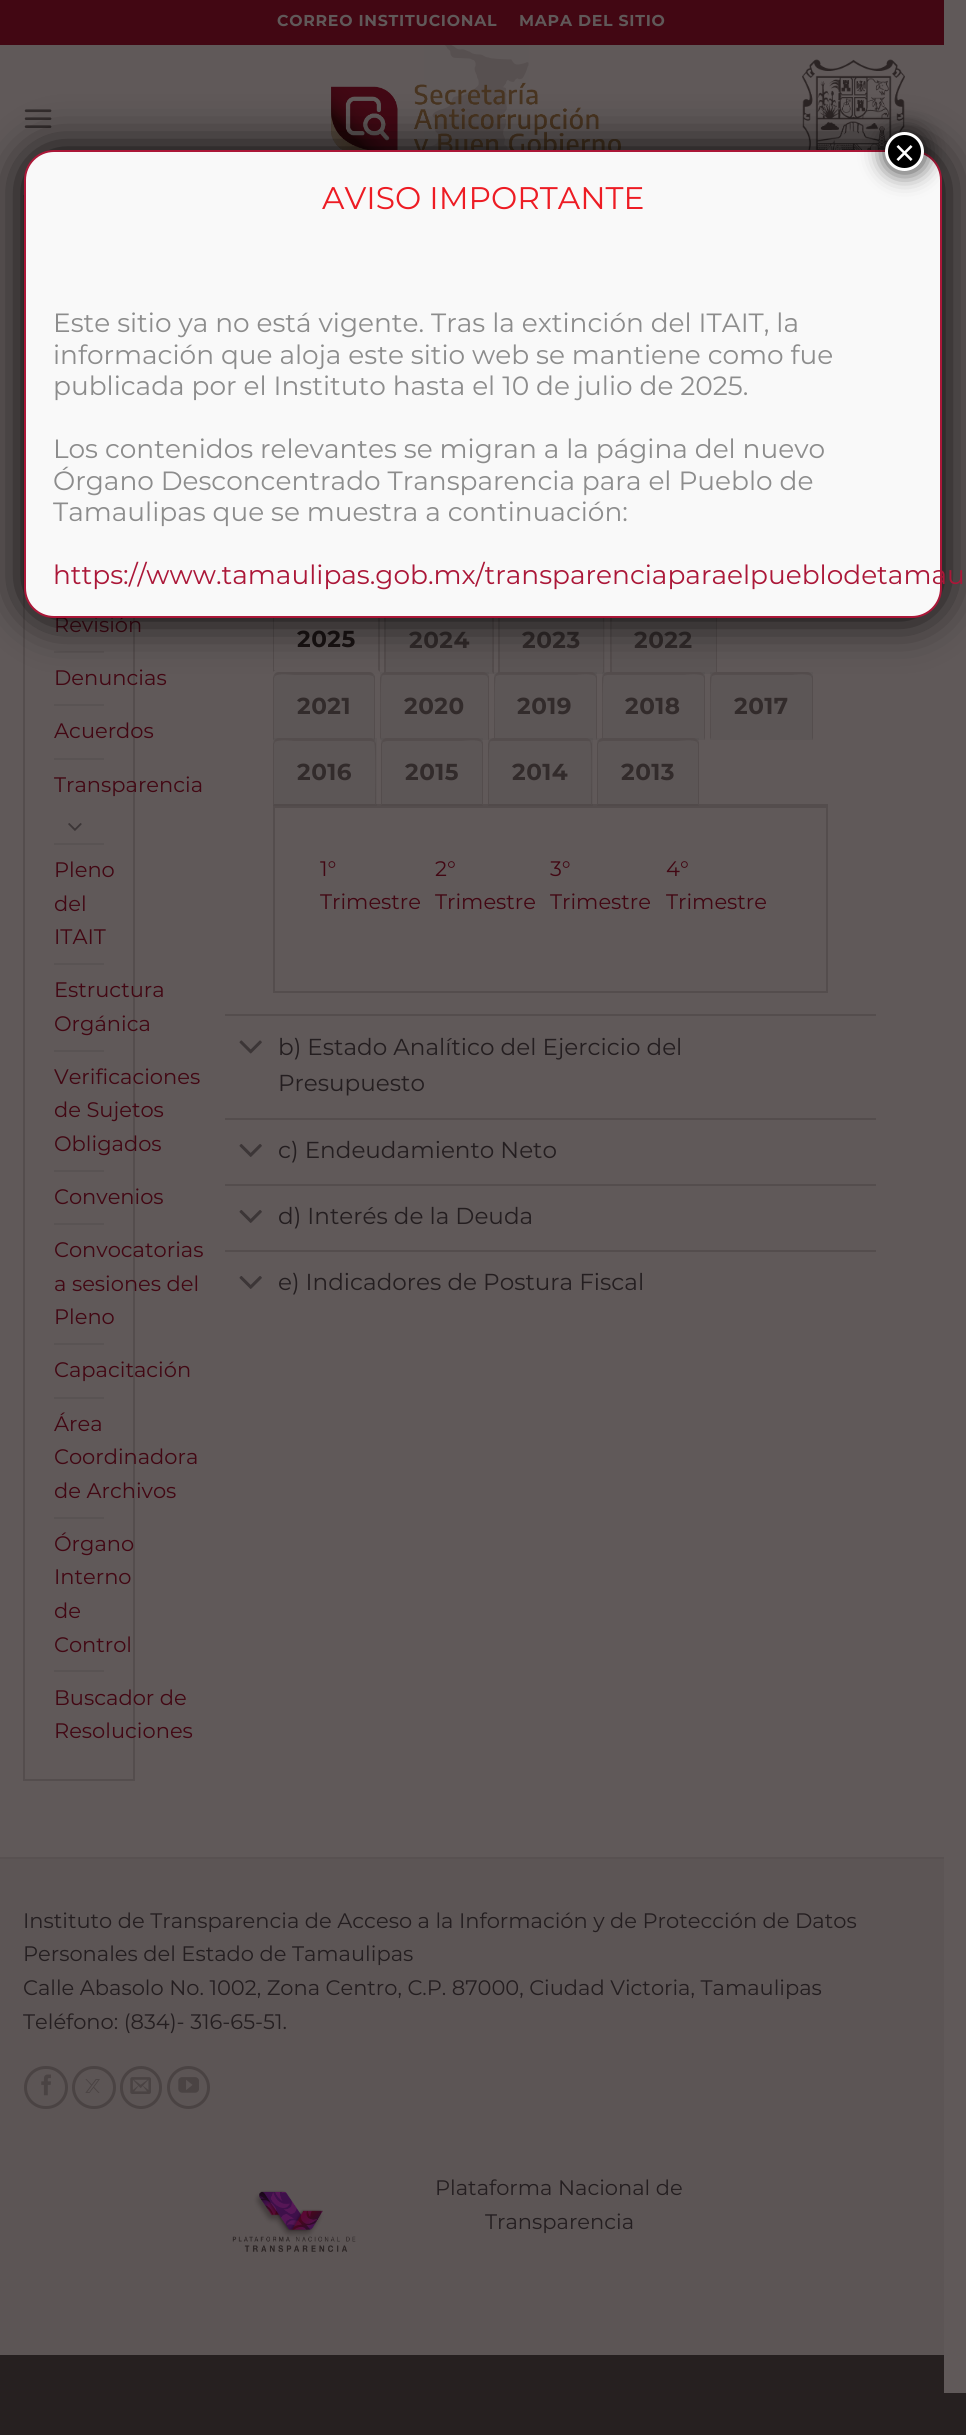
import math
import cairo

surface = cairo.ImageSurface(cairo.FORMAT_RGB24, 966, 2435)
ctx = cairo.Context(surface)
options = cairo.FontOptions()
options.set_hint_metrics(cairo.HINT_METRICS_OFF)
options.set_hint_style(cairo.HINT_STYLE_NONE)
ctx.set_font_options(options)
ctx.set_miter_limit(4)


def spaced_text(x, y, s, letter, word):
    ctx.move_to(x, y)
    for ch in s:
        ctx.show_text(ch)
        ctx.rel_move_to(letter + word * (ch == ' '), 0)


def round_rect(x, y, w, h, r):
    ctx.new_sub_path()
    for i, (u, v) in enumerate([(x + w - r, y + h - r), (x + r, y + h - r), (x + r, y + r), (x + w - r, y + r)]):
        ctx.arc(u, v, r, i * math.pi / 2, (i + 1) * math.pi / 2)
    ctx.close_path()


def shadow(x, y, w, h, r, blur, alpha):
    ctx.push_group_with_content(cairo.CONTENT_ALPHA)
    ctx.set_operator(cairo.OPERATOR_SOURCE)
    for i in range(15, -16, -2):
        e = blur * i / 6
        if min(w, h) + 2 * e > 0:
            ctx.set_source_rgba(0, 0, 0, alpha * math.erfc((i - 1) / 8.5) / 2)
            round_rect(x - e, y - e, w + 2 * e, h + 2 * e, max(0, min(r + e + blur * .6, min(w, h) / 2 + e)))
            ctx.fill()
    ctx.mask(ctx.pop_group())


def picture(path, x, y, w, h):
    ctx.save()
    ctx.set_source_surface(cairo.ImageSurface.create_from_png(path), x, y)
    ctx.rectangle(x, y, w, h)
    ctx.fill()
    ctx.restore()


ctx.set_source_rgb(0.149, 0.125, 0.125)
ctx.paint()
ctx.set_source_rgb(0.376, 0.349, 0.349)
ctx.rectangle(0, 0, 966, 2393)
ctx.fill()
ctx.set_source_rgb(0.259, 0.031, 0.078)
ctx.rectangle(0, 0, 944, 45)
ctx.fill()
ctx.select_font_face("Montserrat", cairo.FONT_SLANT_NORMAL, cairo.FONT_WEIGHT_BOLD)
ctx.set_font_size(15.75)
ctx.set_source_rgb(0.376, 0.349, 0.349)
spaced_text(277, 26, "CORREO INSTITUCIONAL", 0.75, 0)
spaced_text(519, 26, "MAPA DEL SITIO", 0.75, 0)
picture("img1.png", 424, 45, 105, 105)
ctx.set_source_rgba(0.376, 0.349, 0.349, 0.9)
ctx.rectangle(424, 45, 105, 105)
ctx.fill()
picture("img2.png", 24, 109, 28, 19)
picture("img3.png", 331, 82, 290, 68)
picture("img4.png", 802, 59, 103, 91)
ctx.rectangle(24, 196, 110, 1584)
ctx.set_source_rgb(0.329, 0.302, 0.302)
ctx.stroke()
ctx.set_source_rgba(0.141, 0.118, 0.125, 0.1)
ctx.rectangle(23, 195, 1, 2)
ctx.fill()
ctx.select_font_face("Montserrat")
ctx.set_font_size(21)
ctx.set_source_rgb(0.259, 0.031, 0.078)
ctx.move_to(54, 632)
ctx.show_text("Revisión")
ctx.set_source_rgb(0.349, 0.325, 0.325)
ctx.rectangle(54, 651, 50, 2)
ctx.fill()
ctx.set_source_rgb(0.259, 0.031, 0.078)
ctx.move_to(54, 685)
ctx.show_text("Denuncias")
ctx.set_source_rgb(0.349, 0.325, 0.325)
ctx.rectangle(54, 704, 50, 2)
ctx.fill()
ctx.set_source_rgb(0.259, 0.031, 0.078)
ctx.move_to(54, 738)
ctx.show_text("Acuerdos")
ctx.set_source_rgb(0.349, 0.325, 0.325)
ctx.rectangle(54, 758, 50, 2)
ctx.fill()
ctx.set_source_rgb(0.259, 0.031, 0.078)
ctx.move_to(54, 792)
ctx.show_text("Transparencia")
picture("img5.png", 68, 823, 14, 8)
ctx.set_source_rgb(0.349, 0.325, 0.325)
ctx.rectangle(54, 843, 50, 2)
ctx.fill()
ctx.set_source_rgb(0.259, 0.031, 0.078)
ctx.move_to(54, 877)
ctx.show_text("Pleno")
ctx.move_to(54, 911)
ctx.show_text("del")
ctx.move_to(54, 944)
ctx.show_text("ITAIT")
ctx.set_source_rgb(0.349, 0.325, 0.325)
ctx.rectangle(54, 963, 50, 2)
ctx.fill()
ctx.set_source_rgb(0.259, 0.031, 0.078)
ctx.move_to(54, 997)
ctx.show_text("Estructura")
ctx.move_to(54, 1031)
ctx.show_text("Orgánica")
ctx.set_source_rgb(0.349, 0.325, 0.325)
ctx.rectangle(54, 1050, 50, 2)
ctx.fill()
ctx.set_source_rgb(0.259, 0.031, 0.078)
ctx.move_to(54, 1084)
ctx.show_text("Verificaciones")
ctx.move_to(54, 1117)
ctx.show_text("de Sujetos")
ctx.move_to(54, 1151)
ctx.show_text("Obligados")
ctx.set_source_rgb(0.349, 0.325, 0.325)
ctx.rectangle(54, 1170, 50, 2)
ctx.fill()
ctx.set_source_rgb(0.259, 0.031, 0.078)
ctx.move_to(54, 1204)
ctx.show_text("Convenios")
ctx.set_source_rgb(0.349, 0.325, 0.325)
ctx.rectangle(54, 1223, 50, 2)
ctx.fill()
ctx.set_source_rgb(0.259, 0.031, 0.078)
ctx.move_to(54, 1257)
ctx.show_text("Convocatorias")
ctx.move_to(54, 1291)
ctx.show_text("a sesiones del")
ctx.move_to(54, 1324)
ctx.show_text("Pleno")
ctx.set_source_rgb(0.349, 0.325, 0.325)
ctx.rectangle(54, 1343, 50, 2)
ctx.fill()
ctx.set_source_rgb(0.259, 0.031, 0.078)
ctx.move_to(54, 1377)
ctx.show_text("Capacitación")
ctx.set_source_rgb(0.349, 0.325, 0.325)
ctx.rectangle(54, 1397, 50, 2)
ctx.fill()
ctx.set_source_rgb(0.259, 0.031, 0.078)
ctx.move_to(54, 1431)
ctx.show_text("Área")
ctx.move_to(54, 1464)
ctx.show_text("Coordinadora")
ctx.move_to(54, 1498)
ctx.show_text("de Archivos")
ctx.set_source_rgb(0.349, 0.325, 0.325)
ctx.rectangle(54, 1517, 50, 2)
ctx.fill()
ctx.set_source_rgb(0.259, 0.031, 0.078)
ctx.move_to(54, 1551)
ctx.show_text("Órgano")
ctx.move_to(54, 1584)
ctx.show_text("Interno")
ctx.move_to(54, 1618)
ctx.show_text("de")
ctx.move_to(54, 1652)
ctx.show_text("Control")
ctx.set_source_rgb(0.349, 0.325, 0.325)
ctx.rectangle(54, 1670, 50, 2)
ctx.fill()
ctx.set_source_rgb(0.259, 0.031, 0.078)
ctx.move_to(54, 1705)
ctx.show_text("Buscador de")
ctx.move_to(54, 1738)
ctx.show_text("Resoluciones")
ctx.set_source_rgb(0.329, 0.302, 0.302)
ctx.rectangle(273, 804, 555, 2)
ctx.fill()
ctx.new_path()
ctx.move_to(380, 610)
ctx.line_to(380, 672)
ctx.line_to(378, 670)
ctx.line_to(378, 612)
ctx.line_to(376, 609)
ctx.line_to(378, 608)
ctx.close_path()
ctx.fill()
ctx.new_path()
ctx.move_to(273, 672)
ctx.line_to(275, 670)
ctx.line_to(274, 670)
ctx.line_to(274, 612)
ctx.line_to(276, 609)
ctx.line_to(275, 608)
ctx.curve_to(274, 609, 273, 610, 273, 612)
ctx.close_path()
ctx.fill()
ctx.select_font_face("Montserrat", cairo.FONT_SLANT_NORMAL, cairo.FONT_WEIGHT_BOLD)
ctx.set_font_size(23.1)
ctx.set_source_rgb(0.098, 0.075, 0.075)
spaced_text(297, 647, "2025", 0.5, 0)
ctx.set_source_rgb(0.361, 0.337, 0.337)
ctx.rectangle(385, 618, 109, 56)
ctx.fill()
ctx.set_source_rgb(0.329, 0.302, 0.302)
ctx.new_path()
ctx.move_to(492, 608)
ctx.line_to(494, 610)
ctx.line_to(494, 674)
ctx.line_to(492, 672)
ctx.curve_to(492, 665, 493, 612, 491, 610)
ctx.close_path()
ctx.fill()
ctx.new_path()
ctx.move_to(384, 674)
ctx.line_to(386, 672)
ctx.line_to(386, 611)
ctx.line_to(385, 609)
ctx.line_to(384, 612)
ctx.close_path()
ctx.fill()
ctx.set_source_rgb(0.196, 0.169, 0.169)
spaced_text(409, 648, "2024", 0.5, 0)
ctx.set_source_rgb(0.361, 0.337, 0.337)
ctx.rectangle(499, 618, 106, 56)
ctx.fill()
ctx.set_source_rgb(0.329, 0.302, 0.302)
ctx.new_path()
ctx.move_to(603, 609)
ctx.line_to(604, 612)
ctx.line_to(604, 673)
ctx.line_to(603, 672)
ctx.curve_to(603, 665, 604, 612, 602, 610)
ctx.close_path()
ctx.fill()
ctx.new_path()
ctx.move_to(498, 674)
ctx.line_to(500, 672)
ctx.line_to(500, 611)
ctx.line_to(499, 609)
ctx.line_to(498, 612)
ctx.close_path()
ctx.fill()
ctx.set_source_rgb(0.196, 0.169, 0.169)
spaced_text(522, 648, "2023", 0.5, 0)
ctx.set_source_rgb(0.361, 0.337, 0.337)
ctx.rectangle(611, 618, 105, 56)
ctx.fill()
ctx.set_source_rgb(0.329, 0.302, 0.302)
ctx.new_path()
ctx.move_to(717, 674)
ctx.line_to(717, 612)
ctx.curve_to(717, 611, 717, 610, 716, 609)
ctx.line_to(715, 610)
ctx.line_to(716, 612)
ctx.line_to(716, 672)
ctx.close_path()
ctx.fill()
ctx.new_path()
ctx.move_to(610, 674)
ctx.line_to(610, 610)
ctx.line_to(612, 608)
ctx.line_to(613, 610)
ctx.curve_to(611, 612, 612, 665, 612, 672)
ctx.close_path()
ctx.fill()
ctx.set_source_rgb(0.196, 0.169, 0.169)
spaced_text(634, 648, "2022", 0.5, 0)
ctx.set_source_rgb(0.361, 0.337, 0.337)
ctx.new_path()
ctx.move_to(279, 672)
ctx.line_to(369, 672)
ctx.curve_to(372.5, 672, 375, 674.5, 375, 678)
ctx.line_to(375, 740)
ctx.line_to(273, 740)
ctx.line_to(273, 678)
ctx.curve_to(273, 674.5, 275.5, 672, 279, 672)
ctx.close_path()
ctx.fill()
ctx.set_source_rgb(0.329, 0.302, 0.302)
ctx.new_path()
ctx.move_to(279, 672)
ctx.curve_to(277, 672, 275, 673, 274, 675)
ctx.line_to(275, 676)
ctx.curve_to(279, 673, 293, 675, 294, 675)
ctx.line_to(369, 675)
ctx.line_to(373, 676)
ctx.line_to(374, 675)
ctx.curve_to(373, 673, 371, 672, 369, 672)
ctx.close_path()
ctx.fill()
ctx.new_path()
ctx.move_to(375, 740)
ctx.line_to(375, 678)
ctx.curve_to(375, 677, 375, 676, 374, 675)
ctx.line_to(373, 676)
ctx.line_to(374, 678)
ctx.line_to(374, 738)
ctx.close_path()
ctx.fill()
ctx.new_path()
ctx.move_to(273, 740)
ctx.line_to(274, 738)
ctx.line_to(274, 678)
ctx.line_to(275, 676)
ctx.line_to(274, 675)
ctx.line_to(273, 678)
ctx.close_path()
ctx.fill()
ctx.set_source_rgb(0.196, 0.169, 0.169)
spaced_text(297, 714, "2021", 0.5, 0)
ctx.set_source_rgba(0.027, 0, 0, 0.04)
ctx.rectangle(380, 672, 109, 68)
ctx.fill()
ctx.set_source_rgb(0.329, 0.302, 0.302)
ctx.new_path()
ctx.move_to(386, 672)
ctx.curve_to(384, 672, 382, 673, 381, 675)
ctx.line_to(382, 676)
ctx.curve_to(382, 675, 384, 675, 386, 675)
ctx.line_to(483, 675)
ctx.curve_to(484, 675, 486, 675, 487, 676)
ctx.line_to(488, 675)
ctx.curve_to(487, 673, 485, 672, 483, 672)
ctx.close_path()
ctx.fill()
ctx.new_path()
ctx.move_to(489, 740)
ctx.line_to(489, 678)
ctx.curve_to(489, 677, 489, 676, 488, 675)
ctx.line_to(487, 676)
ctx.line_to(488, 678)
ctx.line_to(488, 738)
ctx.close_path()
ctx.fill()
ctx.new_path()
ctx.move_to(381, 675)
ctx.line_to(380, 678)
ctx.line_to(380, 739)
ctx.line_to(381, 738)
ctx.curve_to(381, 731, 380, 678, 382, 676)
ctx.close_path()
ctx.fill()
ctx.set_source_rgb(0.196, 0.169, 0.169)
spaced_text(404, 714, "2020", 0.5, 0)
ctx.set_source_rgba(0.027, 0, 0, 0.04)
ctx.rectangle(494, 672, 103, 68)
ctx.fill()
ctx.set_source_rgb(0.329, 0.302, 0.302)
ctx.new_path()
ctx.move_to(500, 672)
ctx.curve_to(498, 672, 496, 673, 495, 675)
ctx.line_to(496, 676)
ctx.line_to(499, 675)
ctx.line_to(576, 675)
ctx.curve_to(576, 675, 591, 673, 595, 676)
ctx.line_to(596, 675)
ctx.curve_to(595, 673, 593, 672, 591, 672)
ctx.close_path()
ctx.fill()
ctx.new_path()
ctx.move_to(597, 740)
ctx.line_to(597, 678)
ctx.curve_to(597, 677, 597, 676, 596, 675)
ctx.line_to(595, 676)
ctx.line_to(596, 678)
ctx.line_to(596, 738)
ctx.close_path()
ctx.fill()
ctx.new_path()
ctx.move_to(495, 675)
ctx.line_to(494, 678)
ctx.line_to(494, 739)
ctx.line_to(495, 738)
ctx.curve_to(495, 731, 494, 678, 496, 676)
ctx.close_path()
ctx.fill()
ctx.set_source_rgb(0.196, 0.169, 0.169)
spaced_text(517, 714, "2019", 0.5, 0)
ctx.set_source_rgba(0.027, 0, 0, 0.04)
ctx.rectangle(602, 672, 103, 68)
ctx.fill()
ctx.set_source_rgb(0.329, 0.302, 0.302)
ctx.new_path()
ctx.move_to(608, 672)
ctx.curve_to(606, 672, 604, 673, 603, 675)
ctx.line_to(604, 676)
ctx.line_to(607, 675)
ctx.line_to(684, 675)
ctx.curve_to(684, 675, 699, 673, 703, 676)
ctx.line_to(704, 675)
ctx.curve_to(703, 673, 701, 672, 699, 672)
ctx.close_path()
ctx.fill()
ctx.new_path()
ctx.move_to(705, 740)
ctx.line_to(705, 678)
ctx.curve_to(705, 677, 705, 676, 704, 675)
ctx.line_to(703, 676)
ctx.line_to(704, 678)
ctx.line_to(704, 738)
ctx.close_path()
ctx.fill()
ctx.new_path()
ctx.move_to(603, 675)
ctx.line_to(602, 678)
ctx.line_to(602, 739)
ctx.line_to(603, 738)
ctx.curve_to(603, 731, 602, 678, 604, 676)
ctx.close_path()
ctx.fill()
ctx.set_source_rgb(0.196, 0.169, 0.169)
spaced_text(625, 714, "2018", 0.5, 0)
ctx.set_source_rgba(0.027, 0, 0, 0.04)
ctx.rectangle(710, 672, 103, 68)
ctx.fill()
ctx.set_source_rgb(0.329, 0.302, 0.302)
ctx.new_path()
ctx.move_to(716, 672)
ctx.curve_to(714, 672, 712, 673, 711, 675)
ctx.line_to(712, 676)
ctx.line_to(715, 675)
ctx.line_to(792, 675)
ctx.curve_to(792, 675, 807, 673, 811, 676)
ctx.line_to(812, 675)
ctx.curve_to(811, 673, 809, 672, 807, 672)
ctx.close_path()
ctx.fill()
ctx.new_path()
ctx.move_to(813, 740)
ctx.line_to(813, 678)
ctx.curve_to(813, 677, 813, 676, 812, 675)
ctx.line_to(811, 676)
ctx.line_to(812, 678)
ctx.line_to(812, 738)
ctx.close_path()
ctx.fill()
ctx.new_path()
ctx.move_to(711, 675)
ctx.line_to(710, 678)
ctx.line_to(710, 739)
ctx.line_to(711, 738)
ctx.curve_to(711, 731, 710, 678, 712, 676)
ctx.close_path()
ctx.fill()
ctx.set_source_rgb(0.196, 0.169, 0.169)
spaced_text(734, 714, "2017", 0.5, 0)
ctx.set_source_rgba(0.027, 0, 0, 0.04)
ctx.rectangle(273, 738, 104, 68)
ctx.fill()
ctx.set_source_rgb(0.329, 0.302, 0.302)
ctx.new_path()
ctx.move_to(279, 738)
ctx.curve_to(277, 738, 275, 739, 274, 741)
ctx.line_to(275, 742)
ctx.curve_to(279, 739, 294, 741, 294, 741)
ctx.line_to(371, 741)
ctx.line_to(374, 742)
ctx.line_to(375, 741)
ctx.curve_to(374, 739, 372, 738, 370, 738)
ctx.close_path()
ctx.fill()
ctx.new_path()
ctx.move_to(375, 741)
ctx.line_to(376, 744)
ctx.line_to(376, 805)
ctx.line_to(375, 804)
ctx.curve_to(375, 797, 376, 744, 374, 742)
ctx.close_path()
ctx.fill()
ctx.new_path()
ctx.move_to(273, 806)
ctx.line_to(274, 804)
ctx.line_to(274, 744)
ctx.line_to(275, 742)
ctx.line_to(274, 741)
ctx.line_to(273, 744)
ctx.close_path()
ctx.fill()
ctx.set_source_rgb(0.196, 0.169, 0.169)
spaced_text(297, 780, "2016", 0.5, 0)
ctx.set_source_rgba(0.027, 0, 0, 0.04)
ctx.rectangle(381, 738, 102, 68)
ctx.fill()
ctx.set_source_rgb(0.329, 0.302, 0.302)
ctx.new_path()
ctx.move_to(387, 738)
ctx.curve_to(385, 738, 383, 739, 382, 741)
ctx.line_to(383, 742)
ctx.line_to(387, 741)
ctx.line_to(462, 741)
ctx.curve_to(463, 741, 477, 739, 481, 742)
ctx.line_to(482, 741)
ctx.curve_to(481, 739, 479, 738, 477, 738)
ctx.close_path()
ctx.fill()
ctx.new_path()
ctx.move_to(483, 806)
ctx.line_to(483, 744)
ctx.curve_to(483, 743, 483, 742, 482, 741)
ctx.line_to(481, 742)
ctx.line_to(482, 744)
ctx.line_to(482, 804)
ctx.close_path()
ctx.fill()
ctx.new_path()
ctx.move_to(381, 806)
ctx.line_to(382, 804)
ctx.line_to(382, 744)
ctx.line_to(383, 742)
ctx.line_to(382, 741)
ctx.line_to(381, 744)
ctx.close_path()
ctx.fill()
ctx.set_source_rgb(0.196, 0.169, 0.169)
spaced_text(405, 780, "2015", 0.5, 0)
ctx.set_source_rgba(0.027, 0, 0, 0.04)
ctx.rectangle(488, 738, 105, 68)
ctx.fill()
ctx.set_source_rgb(0.329, 0.302, 0.302)
ctx.new_path()
ctx.move_to(494, 738)
ctx.curve_to(492, 738, 490, 739, 489, 741)
ctx.line_to(490, 742)
ctx.curve_to(490, 741, 492, 741, 494, 741)
ctx.line_to(586, 741)
ctx.curve_to(588, 741, 590, 741, 590, 742)
ctx.line_to(591, 741)
ctx.curve_to(590, 739, 588, 738, 586, 738)
ctx.close_path()
ctx.fill()
ctx.new_path()
ctx.move_to(591, 741)
ctx.line_to(592, 744)
ctx.line_to(592, 805)
ctx.line_to(591, 804)
ctx.curve_to(591, 797, 592, 744, 590, 742)
ctx.close_path()
ctx.fill()
ctx.new_path()
ctx.move_to(489, 741)
ctx.line_to(488, 744)
ctx.line_to(488, 805)
ctx.line_to(489, 804)
ctx.curve_to(489, 797, 488, 744, 490, 742)
ctx.close_path()
ctx.fill()
ctx.set_source_rgb(0.196, 0.169, 0.169)
spaced_text(512, 780, "2014", 0.5, 0)
ctx.set_source_rgba(0.027, 0, 0, 0.04)
ctx.rectangle(597, 738, 102, 68)
ctx.fill()
ctx.set_source_rgb(0.329, 0.302, 0.302)
ctx.new_path()
ctx.move_to(603, 738)
ctx.curve_to(601, 738, 599, 739, 598, 741)
ctx.line_to(599, 742)
ctx.line_to(603, 741)
ctx.line_to(678, 741)
ctx.curve_to(679, 741, 693, 739, 697, 742)
ctx.line_to(698, 741)
ctx.curve_to(697, 739, 695, 738, 693, 738)
ctx.close_path()
ctx.fill()
ctx.new_path()
ctx.move_to(699, 806)
ctx.line_to(699, 744)
ctx.curve_to(699, 743, 699, 742, 698, 741)
ctx.line_to(697, 742)
ctx.line_to(698, 744)
ctx.line_to(698, 804)
ctx.close_path()
ctx.fill()
ctx.new_path()
ctx.move_to(597, 806)
ctx.line_to(598, 804)
ctx.line_to(598, 744)
ctx.line_to(599, 742)
ctx.line_to(598, 741)
ctx.line_to(597, 744)
ctx.close_path()
ctx.fill()
ctx.set_source_rgb(0.196, 0.169, 0.169)
spaced_text(621, 780, "2013", 0.5, 0)
ctx.rectangle(274, 807, 553, 185)
ctx.set_source_rgb(0.329, 0.302, 0.302)
ctx.stroke()
ctx.select_font_face("Montserrat")
ctx.set_font_size(21)
ctx.set_source_rgb(0.259, 0.031, 0.078)
ctx.move_to(320, 876)
ctx.show_text("1°")
ctx.move_to(320, 909)
ctx.show_text("Trimestre")
ctx.move_to(435, 876)
ctx.show_text("2°")
ctx.move_to(435, 909)
ctx.show_text("Trimestre")
ctx.move_to(550, 876)
ctx.show_text("3°")
ctx.move_to(550, 909)
ctx.show_text("Trimestre")
ctx.move_to(666, 876)
ctx.show_text("4°")
ctx.move_to(666, 909)
ctx.show_text("Trimestre")
ctx.set_source_rgb(0.329, 0.302, 0.302)
ctx.rectangle(225, 1014, 651, 2)
ctx.fill()
picture("img6.png", 239, 1040, 23, 14)
ctx.set_font_size(23.1)
ctx.set_source_rgb(0.141, 0.118, 0.125)
ctx.move_to(278, 1055)
ctx.show_text("b) Estado Analítico del Ejercicio del")
ctx.move_to(278, 1091)
ctx.show_text("Presupuesto")
ctx.set_source_rgb(0.329, 0.302, 0.302)
ctx.rectangle(225, 1118, 651, 2)
ctx.fill()
picture("img7.png", 239, 1144, 23, 13)
ctx.set_source_rgb(0.141, 0.118, 0.125)
ctx.move_to(278, 1158)
ctx.show_text("c) Endeudamiento Neto")
ctx.set_source_rgb(0.329, 0.302, 0.302)
ctx.rectangle(225, 1184, 651, 2)
ctx.fill()
picture("img7.png", 239, 1210, 23, 13)
ctx.set_source_rgb(0.141, 0.118, 0.125)
ctx.move_to(278, 1224)
ctx.show_text("d) Interés de la Deuda")
ctx.set_source_rgb(0.329, 0.302, 0.302)
ctx.rectangle(225, 1250, 651, 2)
ctx.fill()
picture("img7.png", 239, 1276, 23, 13)
ctx.set_source_rgb(0.141, 0.118, 0.125)
ctx.move_to(278, 1290)
ctx.show_text("e) Indicadores de Postura Fiscal")
ctx.set_source_rgb(0.361, 0.333, 0.333)
ctx.rectangle(0, 1859, 944, 496)
ctx.fill()
ctx.set_source_rgb(0.345, 0.318, 0.318)
ctx.rectangle(0, 1857, 944, 2)
ctx.fill()
ctx.set_font_size(21)
ctx.set_source_rgb(0.141, 0.118, 0.125)
ctx.move_to(23, 1928)
ctx.show_text("Instituto de Transparencia de Acceso a la Información y de Protección de Datos")
ctx.move_to(23, 1961)
ctx.show_text("Personales del Estado de Tamaulipas")
ctx.move_to(23, 1995)
ctx.show_text("Calle Abasolo No. 1002, Zona Centro, C.P. 87000, Ciudad Victoria, Tamaulipas")
ctx.move_to(23, 2029)
ctx.show_text("Teléfono: (834)- 316-65-51.")
round_rect(25.5, 2067.5, 41, 40, 20)
ctx.set_source_rgb(0.29, 0.263, 0.263)
ctx.set_line_width(3)
ctx.stroke()
picture("img8.png", 41, 2074, 10, 22)
round_rect(73.5, 2067.5, 41, 40, 20)
ctx.stroke()
picture("img9.png", 85, 2079, 15, 14)
round_rect(121.5, 2067.5, 39, 40, 19.5)
ctx.stroke()
picture("img10.png", 130, 2077, 21, 17)
ctx.arc(188.5, 2087.5, 20, 0, 2 * math.pi)
ctx.stroke()
picture("img11.png", 178, 2077, 21, 16)
picture("img12.png", 232, 2190, 124, 62)
ctx.set_source_rgb(0.141, 0.118, 0.125)
ctx.move_to(435, 2195)
ctx.show_text("Plataforma Nacional de")
ctx.move_to(485, 2229)
ctx.show_text("Transparencia")
ctx.set_source_rgb(0.149, 0.125, 0.125)
ctx.rectangle(0, 2355, 944, 38)
ctx.fill()
ctx.set_source_rgb(0.008, 0.008, 0.008)
shadow(24, 150, 918, 468, 30, 22.5, 1)
ctx.set_source_rgb(0.976, 0.976, 0.976)
round_rect(25, 151, 916, 466, 29)
ctx.fill_preserve()
ctx.set_source_rgb(0.671, 0.09, 0.22)
ctx.set_line_width(2)
ctx.stroke()
ctx.set_source_rgb(0.008, 0.008, 0.008)
shadow(884, 131, 42, 42, 21, 11, 0.75)
ctx.set_source_rgb(0, 0, 0)
ctx.arc(904.5, 151.5, 18, 0, 2 * math.pi)
ctx.fill_preserve()
ctx.set_source_rgb(1, 1, 1)
ctx.set_line_width(3)
ctx.stroke()
ctx.select_font_face("Liberation Sans")
ctx.set_font_size(36)
ctx.move_to(894, 165)
ctx.show_text("×")
ctx.select_font_face("Montserrat")
ctx.set_font_size(31.25)
ctx.set_source_rgb(0.929, 0.11, 0.141)
ctx.move_to(322, 209)
ctx.show_text("AVISO IMPORTANTE")
ctx.set_font_size(26.4)
ctx.set_source_rgb(0.549, 0.549, 0.549)
ctx.move_to(53, 332)
ctx.show_text("Este sitio ya no está vigente. Tras la extinción del ITAIT, la")
ctx.move_to(53, 364)
ctx.show_text("información que aloja este sitio web se mantiene como fue")
ctx.move_to(53, 395)
ctx.show_text("publicada por el Instituto hasta el 10 de julio de 2025.")
ctx.move_to(53, 458)
ctx.show_text("Los contenidos relevantes se migran a la página del nuevo")
ctx.move_to(53, 490)
ctx.show_text("Órgano Desconcentrado Transparencia para el Pueblo de")
ctx.move_to(53, 521)
ctx.show_text("Tamaulipas que se muestra a continuación:")
ctx.set_source_rgb(0.671, 0.09, 0.22)
ctx.move_to(53, 584)
ctx.show_text("https://www.tamaulipas.gob.mx/transparenciaparaelpueblodetamau")
surface.write_to_png("page.png")
